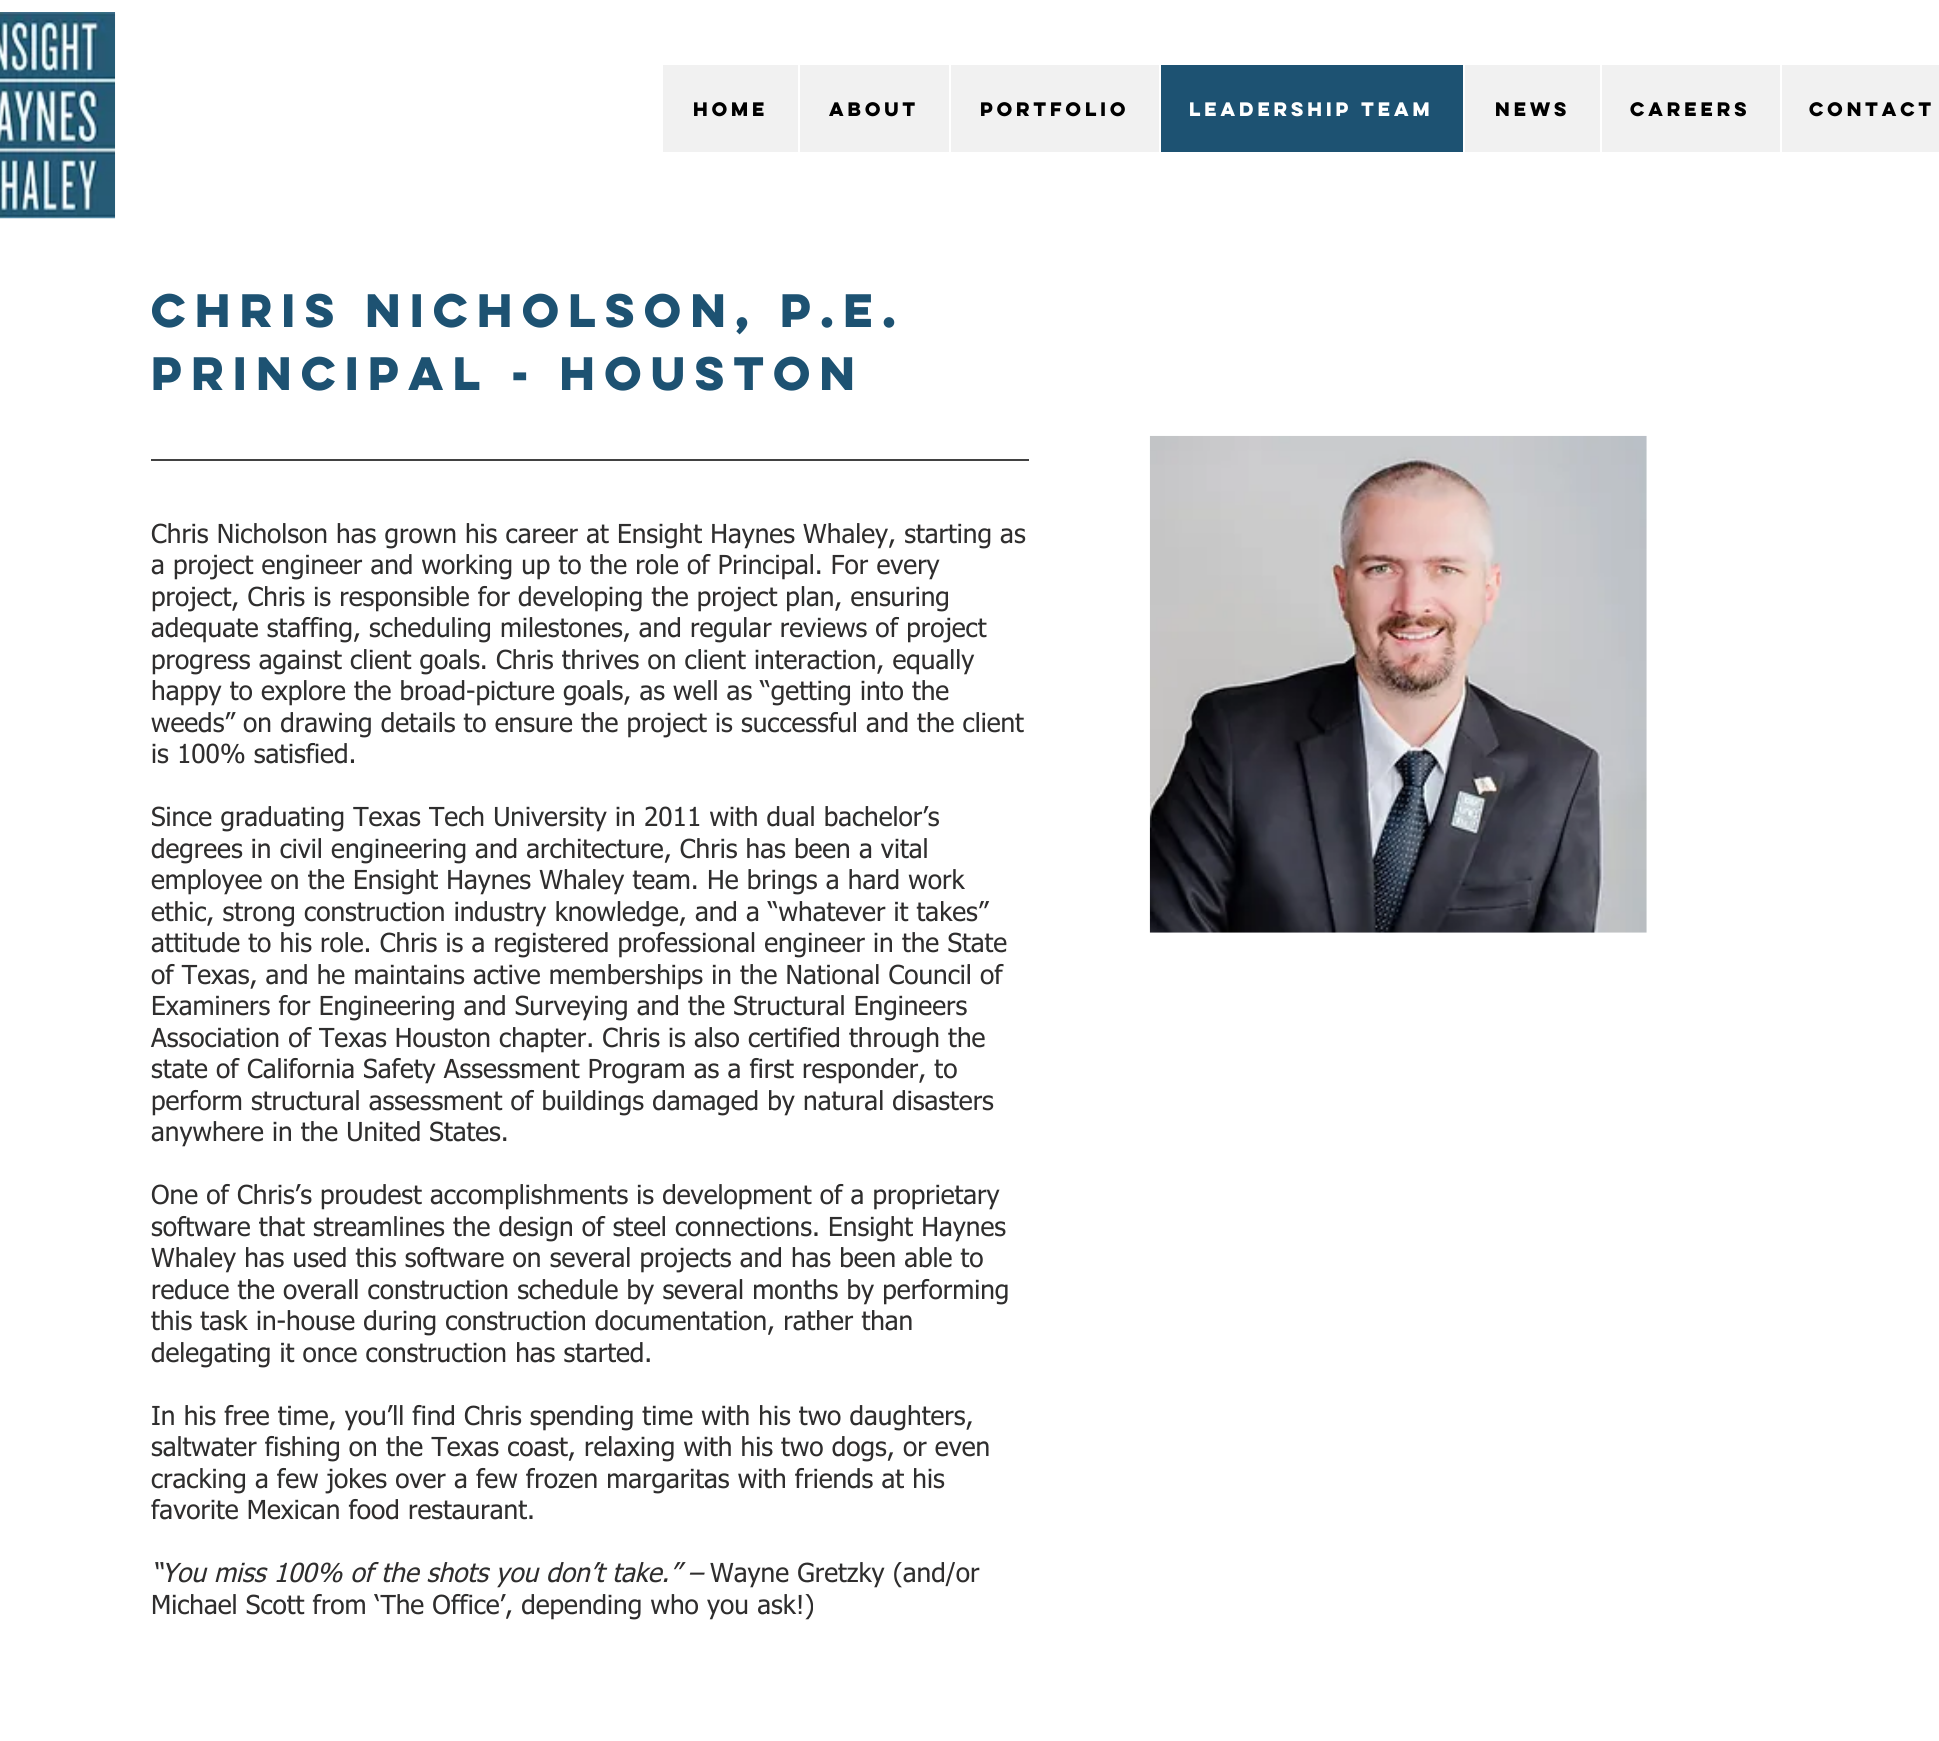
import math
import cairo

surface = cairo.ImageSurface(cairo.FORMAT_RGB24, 1939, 1741)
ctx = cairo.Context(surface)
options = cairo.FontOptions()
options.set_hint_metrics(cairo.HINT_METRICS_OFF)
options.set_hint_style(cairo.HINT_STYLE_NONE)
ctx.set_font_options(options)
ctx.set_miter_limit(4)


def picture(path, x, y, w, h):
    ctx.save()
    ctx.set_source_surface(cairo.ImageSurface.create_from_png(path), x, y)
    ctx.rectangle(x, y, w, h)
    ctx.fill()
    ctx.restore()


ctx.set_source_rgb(1, 1, 1)
ctx.paint()
picture("img1.png", 0, 12, 116, 207)
ctx.set_source_rgb(0.945, 0.945, 0.945)
ctx.rectangle(663, 65, 1276, 87)
ctx.fill()
ctx.select_font_face("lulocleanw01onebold", cairo.FONT_SLANT_NORMAL, cairo.FONT_WEIGHT_BOLD)
ctx.set_font_size(17.5)
ctx.set_source_rgb(0, 0, 0)
ctx.move_to(693, 116)
ctx.show_text("Home")
ctx.set_source_rgb(1, 1, 1)
ctx.rectangle(798, 65, 2, 87)
ctx.fill()
ctx.set_source_rgb(0, 0, 0)
ctx.move_to(829, 116)
ctx.show_text("About")
ctx.set_source_rgb(1, 1, 1)
ctx.rectangle(949, 65, 2, 87)
ctx.fill()
ctx.set_source_rgb(0, 0, 0)
ctx.move_to(980, 116)
ctx.show_text("Portfolio")
ctx.set_source_rgb(0.114, 0.322, 0.447)
ctx.rectangle(1161, 65, 302, 87)
ctx.fill()
ctx.set_source_rgb(1, 1, 1)
ctx.rectangle(1159, 65, 2, 87)
ctx.fill()
ctx.move_to(1189, 116)
ctx.show_text("Leadership Team")
ctx.rectangle(1463, 65, 2, 87)
ctx.fill()
ctx.set_source_rgb(0, 0, 0)
ctx.move_to(1495, 116)
ctx.show_text("News")
ctx.set_source_rgb(1, 1, 1)
ctx.rectangle(1600, 65, 2, 87)
ctx.fill()
ctx.set_source_rgb(0, 0, 0)
ctx.move_to(1630, 116)
ctx.show_text("Careers")
ctx.set_source_rgb(1, 1, 1)
ctx.rectangle(1780, 65, 2, 87)
ctx.fill()
ctx.set_source_rgb(0, 0, 0)
ctx.move_to(1809, 116)
ctx.show_text("Contact")
ctx.set_font_size(42)
ctx.set_source_rgb(0.114, 0.322, 0.447)
ctx.move_to(151, 327)
ctx.show_text("Chris NicholsoN, P.E.")
ctx.move_to(151, 390)
ctx.show_text("PrINCIPAL - Houston")
ctx.set_source_rgb(0.259, 0.259, 0.259)
ctx.rectangle(151, 459, 878, 2)
ctx.fill()
picture("img2.png", 1149, 435, 498, 498)
ctx.select_font_face("tahoma")
ctx.set_font_size(26.25)
ctx.set_source_rgb(0.184, 0.18, 0.18)
ctx.move_to(151, 543)
ctx.show_text("Chris Nicholson has grown his career at Ensight Haynes Whaley, starting as")
ctx.move_to(151, 574)
ctx.show_text("a project engineer and working up to the role of Principal. For every")
ctx.move_to(151, 606)
ctx.show_text("project, Chris is responsible for developing the project plan, ensuring")
ctx.move_to(151, 637)
ctx.show_text("adequate staffing, scheduling milestones, and regular reviews of project")
ctx.move_to(151, 669)
ctx.show_text("progress against client goals. Chris thrives on client interaction, equally")
ctx.move_to(151, 700)
ctx.show_text("happy to explore the broad-picture goals, as well as “getting into the")
ctx.move_to(151, 732)
ctx.show_text("weeds” on drawing details to ensure the project is successful and the client")
ctx.move_to(151, 763)
ctx.show_text("is 100% satisfied.")
ctx.move_to(151, 826)
ctx.show_text("Since graduating Texas Tech University in 2011 with dual bachelor’s")
ctx.move_to(151, 858)
ctx.show_text("degrees in civil engineering and architecture, Chris has been a vital")
ctx.move_to(151, 889)
ctx.show_text("employee on the Ensight Haynes Whaley team. He brings a hard work")
ctx.move_to(151, 921)
ctx.show_text("ethic, strong construction industry knowledge, and a “whatever it takes”")
ctx.move_to(151, 952)
ctx.show_text("attitude to his role. Chris is a registered professional engineer in the State")
ctx.move_to(151, 984)
ctx.show_text("of Texas, and he maintains active memberships in the National Council of")
ctx.move_to(151, 1015)
ctx.show_text("Examiners for Engineering and Surveying and the Structural Engineers")
ctx.move_to(151, 1047)
ctx.show_text("Association of Texas Houston chapter. Chris is also certified through the")
ctx.move_to(151, 1078)
ctx.show_text("state of California Safety Assessment Program as a first responder, to")
ctx.move_to(151, 1110)
ctx.show_text("perform structural assessment of buildings damaged by natural disasters")
ctx.move_to(151, 1141)
ctx.show_text("anywhere in the United States.")
ctx.move_to(151, 1204)
ctx.show_text("One of Chris’s proudest accomplishments is development of a proprietary")
ctx.move_to(151, 1236)
ctx.show_text("software that streamlines the design of steel connections. Ensight Haynes")
ctx.move_to(151, 1267)
ctx.show_text("Whaley has used this software on several projects and has been able to")
ctx.move_to(151, 1299)
ctx.show_text("reduce the overall construction schedule by several months by performing")
ctx.move_to(151, 1330)
ctx.show_text("this task in-house during construction documentation, rather than")
ctx.move_to(151, 1362)
ctx.show_text("delegating it once construction has started.")
ctx.move_to(151, 1425)
ctx.show_text("In his free time, you’ll find Chris spending time with his two daughters,")
ctx.move_to(151, 1456)
ctx.show_text("saltwater fishing on the Texas coast, relaxing with his two dogs, or even")
ctx.move_to(151, 1488)
ctx.show_text("cracking a few jokes over a few frozen margaritas with friends at his")
ctx.move_to(151, 1519)
ctx.show_text("favorite Mexican food restaurant.")
ctx.select_font_face("tahoma", cairo.FONT_SLANT_ITALIC)
ctx.move_to(151, 1582)
ctx.show_text("“You miss 100% of the shots you don’t take.” –")
ctx.select_font_face("tahoma")
ctx.move_to(710, 1582)
ctx.show_text("Wayne Gretzky (and/or")
ctx.move_to(151, 1614)
ctx.show_text("Michael Scott from ‘The Office’, depending who you ask!)")
surface.write_to_png("page.png")
